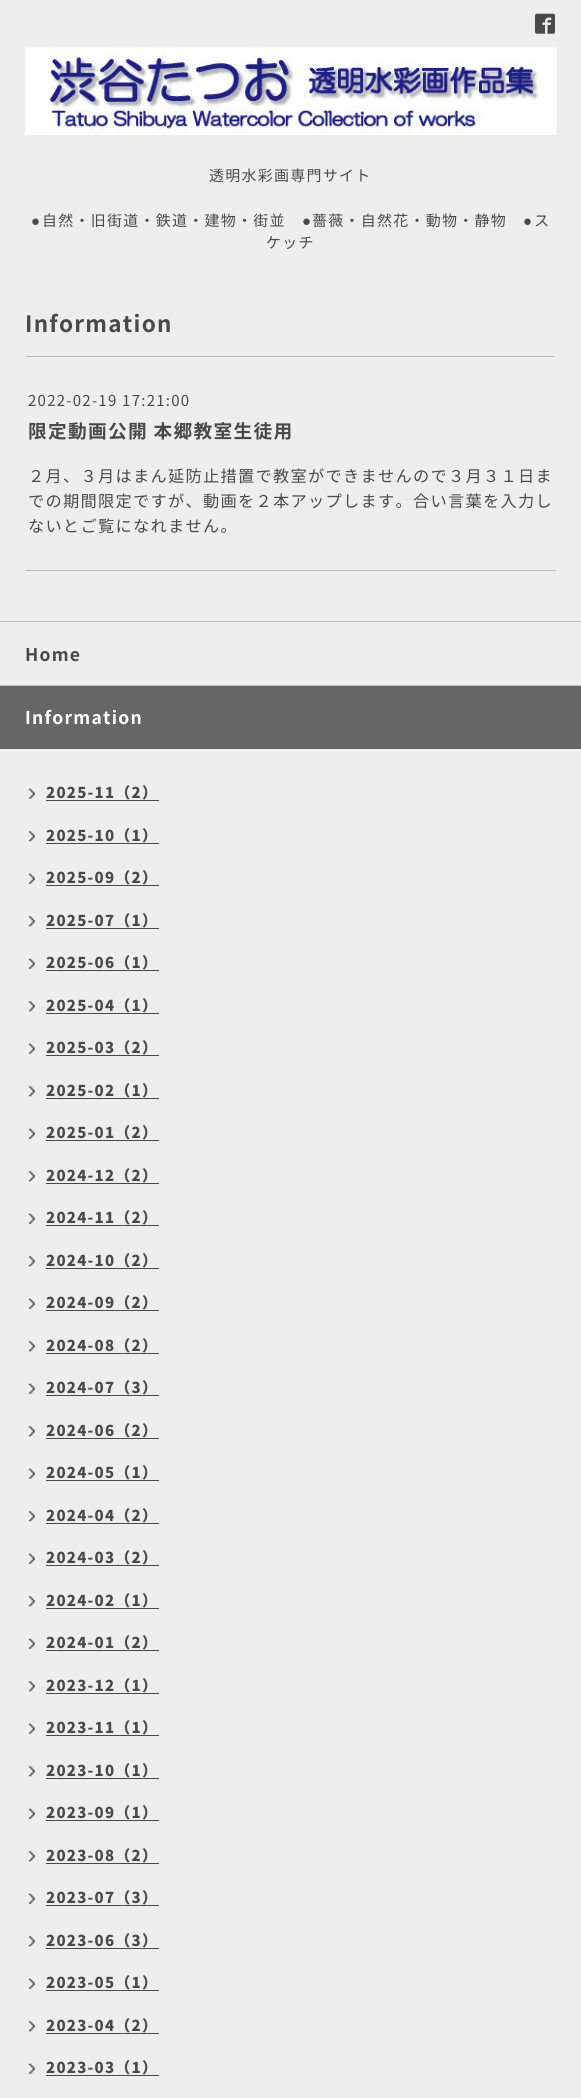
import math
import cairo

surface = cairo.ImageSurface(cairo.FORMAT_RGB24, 581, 2098)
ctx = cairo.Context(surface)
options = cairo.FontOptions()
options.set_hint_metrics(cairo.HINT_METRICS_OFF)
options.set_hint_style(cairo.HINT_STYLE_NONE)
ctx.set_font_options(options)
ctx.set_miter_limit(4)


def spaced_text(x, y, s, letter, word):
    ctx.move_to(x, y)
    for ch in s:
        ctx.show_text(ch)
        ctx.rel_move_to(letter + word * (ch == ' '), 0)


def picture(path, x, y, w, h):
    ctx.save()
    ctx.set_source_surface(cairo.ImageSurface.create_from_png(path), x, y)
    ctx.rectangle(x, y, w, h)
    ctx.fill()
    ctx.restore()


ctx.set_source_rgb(0.933, 0.933, 0.933)
ctx.paint()
picture("img1.png", 535, 13, 20, 21)
picture("img2.png", 25, 47, 532, 88)
ctx.select_font_face("Noto Sans JP")
ctx.set_font_size(15)
ctx.set_source_rgb(0.286, 0.286, 0.286)
spaced_text(209, 181, "透明水彩画専門サイト", 1.25, 0)
ctx.select_font_face("Liberation Serif")
spaced_text(31, 226, "●", 1.25, 0)
ctx.select_font_face("Noto Sans JP")
spaced_text(42, 226, "自然・旧街道・鉄道・建物・街並", 1.25, 0)
ctx.select_font_face("Liberation Serif")
spaced_text(302, 226, "●", 1.25, 0)
ctx.select_font_face("Noto Sans JP")
spaced_text(312, 226, "薔薇・自然花・動物・静物", 1.25, 0)
ctx.select_font_face("Liberation Serif")
spaced_text(523, 226, "●", 1.25, 0)
ctx.select_font_face("Noto Sans JP")
spaced_text(534, 226, "ス", 1.25, 0)
spaced_text(266, 248, "ケッチ", 1.25, 0)
ctx.select_font_face("Noto Sans JP", cairo.FONT_SLANT_NORMAL, cairo.FONT_WEIGHT_BOLD)
ctx.set_font_size(22.5)
spaced_text(25, 332, "Information", 1.25, 0)
ctx.set_source_rgb(0.741, 0.741, 0.741)
ctx.rectangle(25, 570, 531, 1)
ctx.fill()
ctx.rectangle(26, 356, 529, 1)
ctx.fill()
ctx.select_font_face("Noto Sans JP")
ctx.set_font_size(15)
ctx.set_source_rgb(0.286, 0.286, 0.286)
spaced_text(28, 406, "2022-02-19 17:21:00", 1.25, 0)
ctx.select_font_face("Noto Sans JP", cairo.FONT_SLANT_NORMAL, cairo.FONT_WEIGHT_BOLD)
ctx.set_font_size(18.75)
spaced_text(28, 438, "限定動画公開 本郷教室生徒用", 1.25, 0)
ctx.select_font_face("Noto Sans JP")
ctx.set_font_size(16.25)
spaced_text(28, 482, "２月、３月はまん延防止措置で教室ができませんので３月３１日ま", 1.25, 0)
spaced_text(28, 507, "での期間限定ですが、動画を２本アップします。合い言葉を入力し", 1.25, 0)
spaced_text(28, 532, "ないとご覧になれません。", 1.25, 0)
ctx.set_source_rgb(0.741, 0.741, 0.741)
ctx.rectangle(0, 621, 581, 1)
ctx.fill()
ctx.rectangle(0, 685, 581, 1)
ctx.fill()
ctx.select_font_face("Noto Sans JP", cairo.FONT_SLANT_NORMAL, cairo.FONT_WEIGHT_BOLD)
ctx.set_font_size(17.5)
ctx.set_source_rgb(0.286, 0.286, 0.286)
spaced_text(25, 661, "Home", 1.25, 0)
ctx.set_source_rgb(0.4, 0.4, 0.4)
ctx.rectangle(0, 686, 581, 63)
ctx.fill()
ctx.set_source_rgb(1, 1, 1)
spaced_text(25, 724, "Information", 1.25, 0)
picture("img3.png", 28, 788, 7, 11)
ctx.select_font_face("Noto Sans JP Black")
ctx.set_font_size(15)
ctx.set_source_rgb(0.286, 0.286, 0.286)
spaced_text(46, 798, "2025-11（2）", 1.25, 0)
ctx.rectangle(46, 800, 113, 1)
ctx.fill()
picture("img4.png", 28, 831, 7, 11)
spaced_text(46, 841, "2025-10（1）", 1.25, 0)
ctx.rectangle(46, 843, 113, 1)
ctx.fill()
picture("img3.png", 28, 873, 7, 11)
spaced_text(46, 883, "2025-09（2）", 1.25, 0)
ctx.rectangle(46, 885, 113, 1)
ctx.fill()
picture("img4.png", 28, 916, 7, 11)
spaced_text(46, 926, "2025-07（1）", 1.25, 0)
ctx.rectangle(46, 928, 113, 1)
ctx.fill()
picture("img3.png", 28, 958, 7, 11)
spaced_text(46, 968, "2025-06（1）", 1.25, 0)
ctx.rectangle(46, 970, 113, 1)
ctx.fill()
picture("img4.png", 28, 1001, 7, 11)
spaced_text(46, 1011, "2025-04（1）", 1.25, 0)
ctx.rectangle(46, 1013, 113, 1)
ctx.fill()
picture("img3.png", 28, 1043, 7, 11)
spaced_text(46, 1053, "2025-03（2）", 1.25, 0)
ctx.rectangle(46, 1055, 113, 1)
ctx.fill()
picture("img4.png", 28, 1086, 7, 11)
spaced_text(46, 1096, "2025-02（1）", 1.25, 0)
ctx.rectangle(46, 1098, 113, 1)
ctx.fill()
picture("img3.png", 28, 1128, 7, 11)
spaced_text(46, 1138, "2025-01（2）", 1.25, 0)
ctx.rectangle(46, 1140, 113, 1)
ctx.fill()
picture("img5.png", 28, 1171, 7, 11)
spaced_text(46, 1181, "2024-12（2）", 1.25, 0)
ctx.rectangle(46, 1183, 113, 1)
ctx.fill()
picture("img3.png", 28, 1213, 7, 11)
spaced_text(46, 1223, "2024-11（2）", 1.25, 0)
ctx.rectangle(46, 1225, 113, 1)
ctx.fill()
picture("img4.png", 28, 1256, 7, 11)
spaced_text(46, 1266, "2024-10（2）", 1.25, 0)
ctx.rectangle(46, 1268, 113, 1)
ctx.fill()
picture("img3.png", 28, 1298, 7, 11)
spaced_text(46, 1308, "2024-09（2）", 1.25, 0)
ctx.rectangle(46, 1310, 113, 1)
ctx.fill()
picture("img4.png", 28, 1341, 7, 11)
spaced_text(46, 1351, "2024-08（2）", 1.25, 0)
ctx.rectangle(46, 1353, 113, 1)
ctx.fill()
picture("img3.png", 28, 1383, 7, 11)
spaced_text(46, 1393, "2024-07（3）", 1.25, 0)
ctx.rectangle(46, 1395, 113, 1)
ctx.fill()
picture("img4.png", 28, 1426, 7, 11)
spaced_text(46, 1436, "2024-06（2）", 1.25, 0)
ctx.rectangle(46, 1438, 113, 1)
ctx.fill()
picture("img3.png", 28, 1468, 7, 11)
spaced_text(46, 1478, "2024-05（1）", 1.25, 0)
ctx.rectangle(46, 1480, 113, 1)
ctx.fill()
picture("img4.png", 28, 1511, 7, 11)
spaced_text(46, 1521, "2024-04（2）", 1.25, 0)
ctx.rectangle(46, 1523, 113, 1)
ctx.fill()
picture("img3.png", 28, 1553, 7, 11)
spaced_text(46, 1563, "2024-03（2）", 1.25, 0)
ctx.rectangle(46, 1565, 113, 1)
ctx.fill()
picture("img4.png", 28, 1596, 7, 11)
spaced_text(46, 1606, "2024-02（1）", 1.25, 0)
ctx.rectangle(46, 1608, 113, 1)
ctx.fill()
picture("img3.png", 28, 1638, 7, 11)
spaced_text(46, 1648, "2024-01（2）", 1.25, 0)
ctx.rectangle(46, 1650, 113, 1)
ctx.fill()
picture("img4.png", 28, 1681, 7, 11)
spaced_text(46, 1691, "2023-12（1）", 1.25, 0)
ctx.rectangle(46, 1693, 113, 1)
ctx.fill()
picture("img3.png", 28, 1723, 7, 11)
spaced_text(46, 1733, "2023-11（1）", 1.25, 0)
ctx.rectangle(46, 1735, 113, 1)
ctx.fill()
picture("img4.png", 28, 1766, 7, 11)
spaced_text(46, 1776, "2023-10（1）", 1.25, 0)
ctx.rectangle(46, 1778, 113, 1)
ctx.fill()
picture("img3.png", 28, 1808, 7, 11)
spaced_text(46, 1818, "2023-09（1）", 1.25, 0)
ctx.rectangle(46, 1820, 113, 1)
ctx.fill()
picture("img4.png", 28, 1851, 7, 11)
spaced_text(46, 1861, "2023-08（2）", 1.25, 0)
ctx.rectangle(46, 1863, 113, 1)
ctx.fill()
picture("img3.png", 28, 1893, 7, 11)
spaced_text(46, 1903, "2023-07（3）", 1.25, 0)
ctx.rectangle(46, 1905, 113, 1)
ctx.fill()
picture("img4.png", 28, 1936, 7, 11)
spaced_text(46, 1946, "2023-06（3）", 1.25, 0)
ctx.rectangle(46, 1948, 113, 1)
ctx.fill()
picture("img3.png", 28, 1978, 7, 11)
spaced_text(46, 1988, "2023-05（1）", 1.25, 0)
ctx.rectangle(46, 1990, 113, 1)
ctx.fill()
picture("img4.png", 28, 2021, 7, 11)
spaced_text(46, 2031, "2023-04（2）", 1.25, 0)
ctx.rectangle(46, 2033, 113, 1)
ctx.fill()
picture("img3.png", 28, 2063, 7, 11)
spaced_text(46, 2073, "2023-03（1）", 1.25, 0)
ctx.rectangle(46, 2075, 113, 1)
ctx.fill()
surface.write_to_png("page.png")
